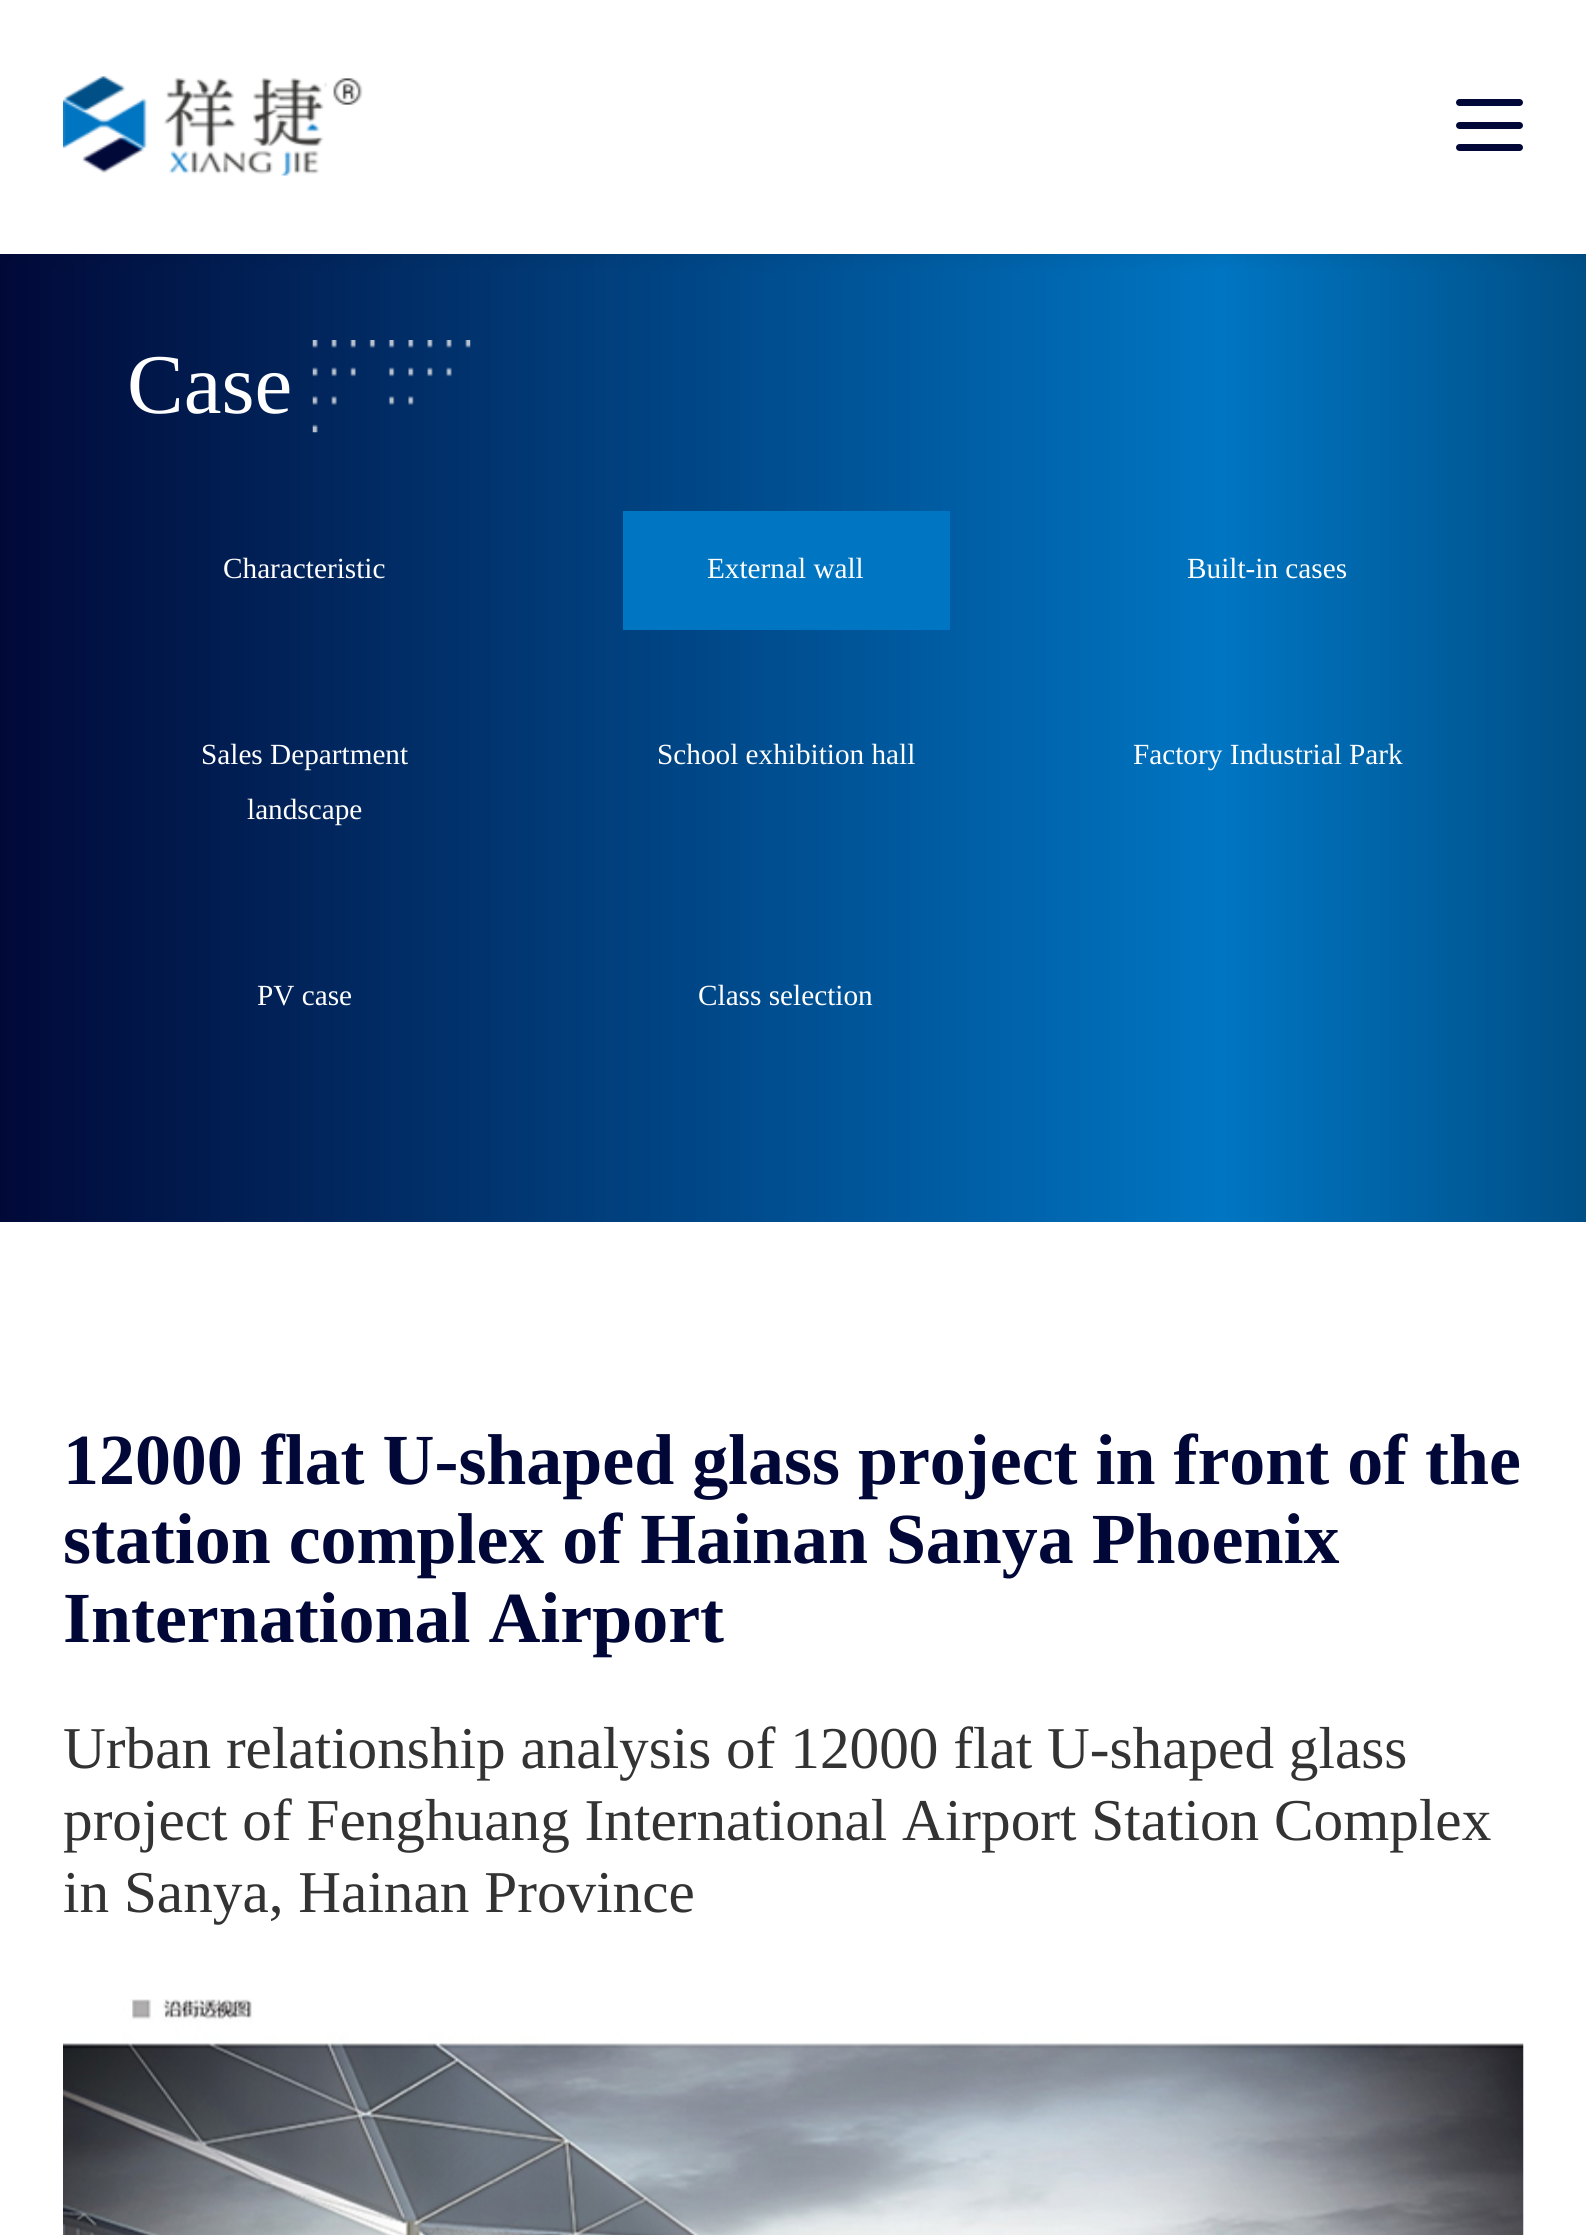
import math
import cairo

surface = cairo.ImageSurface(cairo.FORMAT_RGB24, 1586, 2235)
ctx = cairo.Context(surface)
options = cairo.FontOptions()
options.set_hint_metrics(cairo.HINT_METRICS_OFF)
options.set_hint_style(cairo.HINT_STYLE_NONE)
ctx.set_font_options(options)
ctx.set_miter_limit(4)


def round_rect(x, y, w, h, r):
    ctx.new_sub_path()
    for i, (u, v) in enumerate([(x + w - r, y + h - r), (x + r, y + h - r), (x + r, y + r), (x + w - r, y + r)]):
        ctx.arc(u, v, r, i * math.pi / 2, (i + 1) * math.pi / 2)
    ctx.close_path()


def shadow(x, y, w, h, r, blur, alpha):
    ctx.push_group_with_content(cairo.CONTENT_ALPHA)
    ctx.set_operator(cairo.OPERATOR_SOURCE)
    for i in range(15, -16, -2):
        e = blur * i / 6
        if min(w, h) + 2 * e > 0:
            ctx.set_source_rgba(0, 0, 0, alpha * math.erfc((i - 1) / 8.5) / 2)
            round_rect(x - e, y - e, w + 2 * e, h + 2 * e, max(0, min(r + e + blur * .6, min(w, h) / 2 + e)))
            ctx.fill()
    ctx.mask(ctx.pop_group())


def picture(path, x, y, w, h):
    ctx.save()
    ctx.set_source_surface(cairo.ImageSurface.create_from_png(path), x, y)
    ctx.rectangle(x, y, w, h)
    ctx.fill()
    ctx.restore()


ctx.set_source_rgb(1, 1, 1)
ctx.paint()
gradient = cairo.LinearGradient(0, 714, 1586, 714)
gradient.add_color_stop_rgba(0, 0.004, 0.035, 0.22, 1)
gradient.add_color_stop_rgba(0.77, 0, 0.459, 0.761, 1)
gradient.add_color_stop_rgba(1, 0, 0.31, 0.529, 1)
ctx.set_source(gradient)
ctx.rectangle(0, 254, 1586, 968)
ctx.fill()
ctx.set_source_rgb(0, 0, 0)
shadow(0, 0, 1586, 254, 0, 11, 0.1)
ctx.set_source_rgb(1, 1, 1)
ctx.rectangle(0, 0, 1586, 254)
ctx.fill()
picture("img1.png", 63, 76, 300, 100)
ctx.set_source_rgb(0.004, 0.035, 0.22)
round_rect(1456, 122, 67, 7, 3.5)
ctx.fill()
round_rect(1456, 99, 67, 7, 3.5)
ctx.fill()
round_rect(1456, 144, 67, 7, 3.5)
ctx.fill()
ctx.select_font_face("Liberation Serif")
ctx.set_font_size(85)
ctx.set_source_rgb(1, 1, 1)
ctx.move_to(127, 413)
ctx.show_text("Case")
picture("img2.png", 312, 340, 159, 93)
ctx.set_font_size(29.25)
ctx.move_to(223, 578)
ctx.show_text("Characteristic")
ctx.set_source_rgb(0, 0.459, 0.761)
ctx.rectangle(623, 511, 327, 119)
ctx.fill()
ctx.set_source_rgb(1, 1, 1)
ctx.move_to(707, 578)
ctx.show_text("External wall")
ctx.move_to(1187, 578)
ctx.show_text("Built-in cases")
ctx.move_to(201, 764)
ctx.show_text("Sales Department")
ctx.move_to(247, 819)
ctx.show_text("landscape")
ctx.move_to(657, 764)
ctx.show_text("School exhibition hall")
ctx.move_to(1133, 764)
ctx.show_text("Factory Industrial Park")
ctx.move_to(257, 1005)
ctx.show_text("PV case")
ctx.move_to(698, 1005)
ctx.show_text("Class selection")
ctx.select_font_face("Liberation Serif", cairo.FONT_SLANT_NORMAL, cairo.FONT_WEIGHT_BOLD)
ctx.set_font_size(71.9)
ctx.set_source_rgb(0.004, 0.035, 0.22)
ctx.move_to(63, 1484)
ctx.show_text("12000 flat U-shaped glass project in front of the")
ctx.move_to(63, 1563)
ctx.show_text("station complex of Hainan Sanya Phoenix")
ctx.move_to(63, 1642)
ctx.show_text("International Airport")
ctx.select_font_face("Liberation Serif")
ctx.set_font_size(59.25)
ctx.set_source_rgb(0.2, 0.2, 0.2)
ctx.move_to(63, 1768)
ctx.show_text("Urban relationship analysis of 12000 flat U-shaped glass")
ctx.move_to(63, 1840)
ctx.show_text("project of Fenghuang International Airport Station Complex")
ctx.move_to(63, 1912)
ctx.show_text("in Sanya, Hainan Province")
picture("img3.png", 63, 1999, 1461, 236)
surface.write_to_png("page.png")
